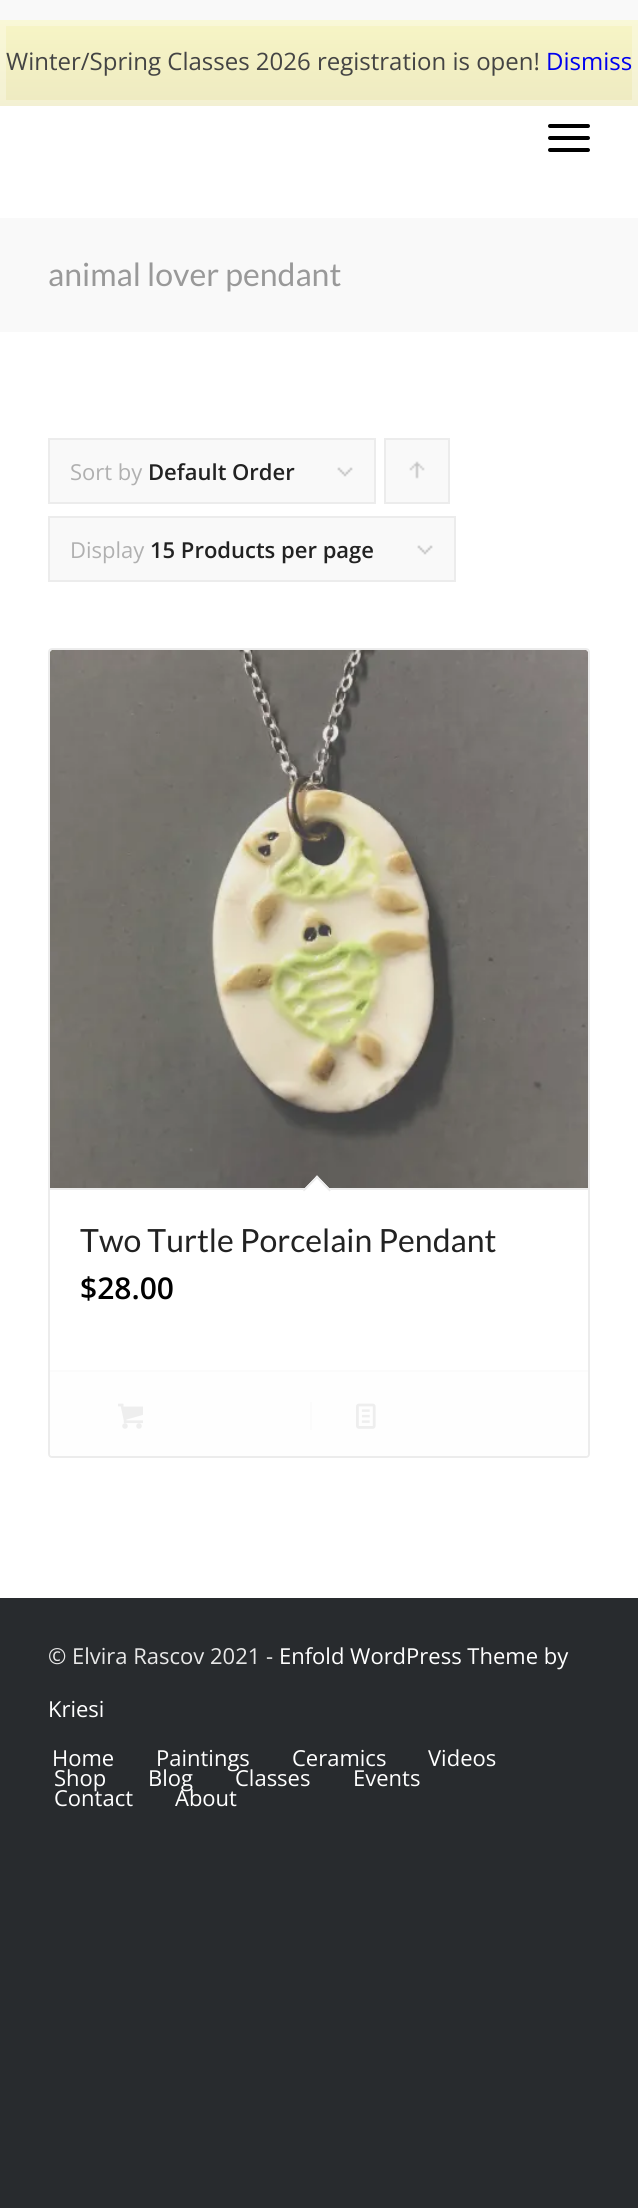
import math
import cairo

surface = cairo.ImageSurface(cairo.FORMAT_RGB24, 638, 2208)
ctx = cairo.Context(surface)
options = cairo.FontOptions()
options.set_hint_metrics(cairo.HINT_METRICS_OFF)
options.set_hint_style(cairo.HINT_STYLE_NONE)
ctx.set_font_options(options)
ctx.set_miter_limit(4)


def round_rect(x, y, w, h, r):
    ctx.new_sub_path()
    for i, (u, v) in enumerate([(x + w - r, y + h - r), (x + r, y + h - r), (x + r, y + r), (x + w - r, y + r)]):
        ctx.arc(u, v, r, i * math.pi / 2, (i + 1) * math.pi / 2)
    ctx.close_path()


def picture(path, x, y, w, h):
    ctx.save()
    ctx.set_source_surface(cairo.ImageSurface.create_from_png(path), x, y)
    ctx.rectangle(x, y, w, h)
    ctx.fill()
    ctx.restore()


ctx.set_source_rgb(0.157, 0.169, 0.18)
ctx.paint()
gradient = cairo.LinearGradient(319, 20, 319, 106)
gradient.add_color_stop_rgba(0, 0.969, 0.961, 0.776, 1)
gradient.add_color_stop_rgba(1, 0.933, 0.918, 0.757, 1)
ctx.set_source(gradient)
ctx.rectangle(0, 20, 638, 86)
ctx.fill()
ctx.rectangle(3, 23, 632, 80)
ctx.set_source_rgba(1, 1, 1, 0.3)
ctx.set_line_width(6)
ctx.stroke()
ctx.select_font_face("Open Sans")
ctx.set_font_size(24)
ctx.set_source_rgb(0.267, 0.267, 0.267)
ctx.move_to(6, 70)
ctx.show_text("Winter/Spring Classes 2026 registration is open!")
ctx.set_source_rgb(0, 0, 0.933)
ctx.move_to(546, 70)
ctx.show_text("Dismiss")
ctx.set_source_rgb(0.973, 0.973, 0.973)
ctx.rectangle(0, 0, 638, 20)
ctx.fill()
ctx.set_source_rgb(1, 1, 1)
ctx.rectangle(0, 106, 638, 112)
ctx.fill()
ctx.set_source_rgb(0, 0, 0)
round_rect(548, 136, 42, 4, 2)
ctx.fill()
round_rect(548, 124, 42, 4, 2)
ctx.fill()
round_rect(548, 148, 42, 4, 2)
ctx.fill()
ctx.set_source_rgb(1, 1, 1)
ctx.rectangle(0, 332, 638, 1266)
ctx.fill()
ctx.set_source_rgb(0.973, 0.973, 0.973)
ctx.rectangle(0, 218, 638, 114)
ctx.fill()
ctx.select_font_face("Lato")
ctx.set_font_size(32)
ctx.set_source_rgb(0.6, 0.6, 0.6)
ctx.move_to(48, 286)
ctx.show_text("animal lover pendant")
ctx.set_source_rgb(0.973, 0.973, 0.973)
ctx.rectangle(50, 440, 324, 62)
ctx.fill()
picture("img1.png", 337, 467, 16, 10)
ctx.rectangle(49, 439, 326, 64)
ctx.set_source_rgb(0.922, 0.922, 0.922)
ctx.set_line_width(2)
ctx.stroke()
ctx.select_font_face("Open Sans")
ctx.set_font_size(22)
ctx.set_source_rgb(0.69, 0.69, 0.69)
ctx.move_to(70, 480)
ctx.show_text("Sort by")
ctx.select_font_face("Open Sans SemiBold")
ctx.set_source_rgb(0.133, 0.133, 0.133)
ctx.move_to(148, 480)
ctx.show_text("Default Order")
ctx.set_source_rgb(0.973, 0.973, 0.973)
ctx.rectangle(386, 440, 62, 62)
ctx.fill()
picture("img2.png", 409, 461, 16, 18)
ctx.rectangle(385, 439, 64, 64)
ctx.set_source_rgb(0.922, 0.922, 0.922)
ctx.stroke()
ctx.set_source_rgb(0.973, 0.973, 0.973)
ctx.rectangle(50, 518, 404, 62)
ctx.fill()
picture("img1.png", 417, 545, 16, 10)
ctx.rectangle(49, 517, 406, 64)
ctx.set_source_rgb(0.922, 0.922, 0.922)
ctx.stroke()
ctx.select_font_face("Open Sans")
ctx.set_source_rgb(0.69, 0.69, 0.69)
ctx.move_to(70, 558)
ctx.show_text("Display")
ctx.select_font_face("Open Sans SemiBold")
ctx.set_source_rgb(0.133, 0.133, 0.133)
ctx.move_to(150, 558)
ctx.show_text("15 Products per page")
round_rect(49, 649, 540, 808, 3)
ctx.set_source_rgb(0.922, 0.922, 0.922)
ctx.stroke()
picture("img3.png", 50, 650, 538, 538)
ctx.rectangle(50, 1188, 538, 2)
ctx.fill()
ctx.set_source_rgb(1, 1, 1)
ctx.new_path()
ctx.move_to(317, 1175.5)
ctx.line_to(331, 1190)
ctx.line_to(317, 1204)
ctx.line_to(303, 1190)
ctx.close_path()
ctx.fill()
ctx.set_source_rgb(0.922, 0.922, 0.922)
ctx.new_path()
ctx.move_to(317, 1175.5)
ctx.line_to(331, 1190)
ctx.line_to(329.5, 1191.5)
ctx.line_to(315.5, 1177)
ctx.close_path()
ctx.fill()
ctx.new_path()
ctx.move_to(317, 1175.5)
ctx.line_to(318.5, 1177)
ctx.line_to(304, 1191.5)
ctx.line_to(303, 1190)
ctx.close_path()
ctx.fill()
ctx.select_font_face("Lato")
ctx.set_font_size(32)
ctx.set_source_rgb(0.133, 0.133, 0.133)
ctx.move_to(80, 1252)
ctx.show_text("Two Turtle Porcelain Pendant")
ctx.select_font_face("Open Sans SemiBold")
ctx.set_font_size(30)
ctx.set_source_rgb(0, 0, 0)
ctx.move_to(80, 1299)
ctx.show_text("$28.00")
ctx.set_source_rgb(0.996, 0.996, 0.996)
ctx.new_path()
ctx.move_to(50, 1370)
ctx.line_to(588, 1370)
ctx.line_to(588, 1454)
ctx.curve_to(588, 1455, 587, 1456, 586, 1456)
ctx.line_to(52, 1456)
ctx.curve_to(51, 1456, 50, 1455, 50, 1454)
ctx.close_path()
ctx.fill()
ctx.set_source_rgb(0.984, 0.984, 0.984)
ctx.rectangle(50, 1370, 538, 2)
ctx.fill()
picture("img4.png", 118, 1403, 25, 26)
ctx.rectangle(310, 1402, 2, 28)
ctx.fill()
picture("img5.png", 356, 1403, 20, 26)
ctx.select_font_face("Open Sans")
ctx.set_font_size(22)
ctx.set_source_rgb(0.91, 0.91, 0.91)
ctx.move_to(48, 1664)
ctx.show_text("© Elvira Rascov 2021 -")
ctx.set_source_rgb(1, 1, 1)
ctx.move_to(279, 1664)
ctx.show_text("Enfold WordPress Theme by")
ctx.move_to(48, 1717)
ctx.show_text("Kriesi")
ctx.move_to(52, 1766)
ctx.show_text("Home")
ctx.move_to(156, 1766)
ctx.show_text("Paintings")
ctx.move_to(292, 1766)
ctx.show_text("Ceramics")
ctx.move_to(428, 1766)
ctx.show_text("Videos")
ctx.move_to(54, 1786)
ctx.show_text("Shop")
ctx.move_to(148, 1786)
ctx.show_text("Blog")
ctx.move_to(235, 1786)
ctx.show_text("Classes")
ctx.move_to(353, 1786)
ctx.show_text("Events")
ctx.move_to(54, 1806)
ctx.show_text("Contact")
ctx.move_to(175, 1806)
ctx.show_text("About")
surface.write_to_png("page.png")
